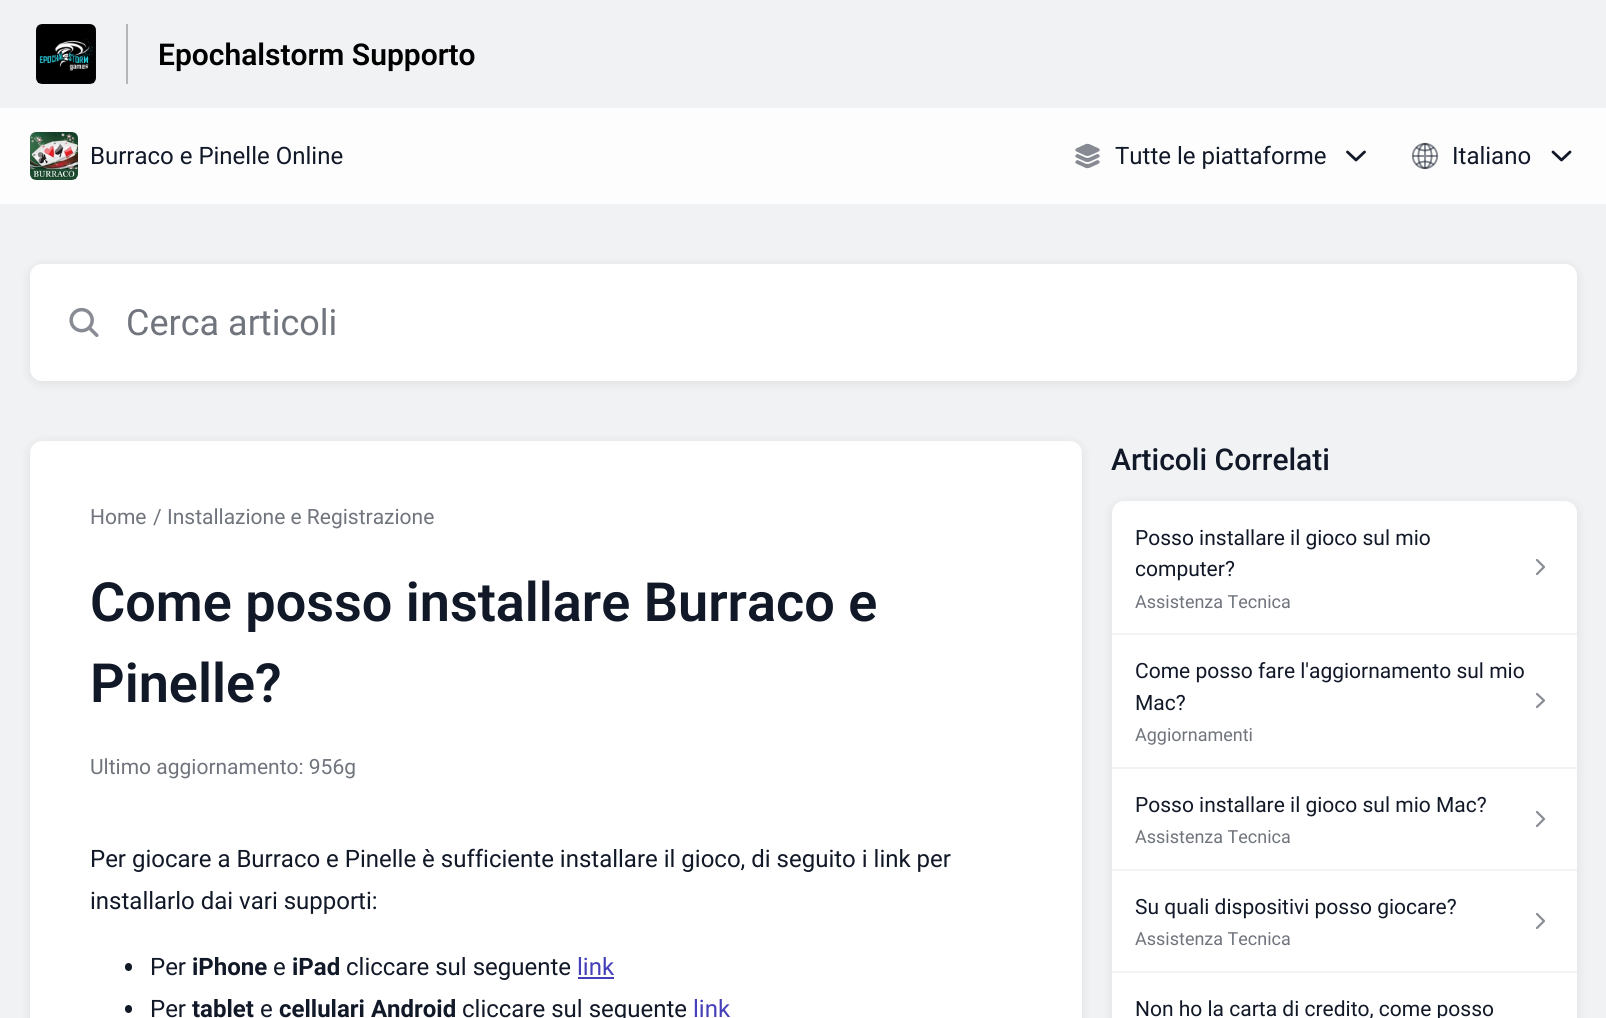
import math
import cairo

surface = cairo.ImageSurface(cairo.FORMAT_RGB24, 1606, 1018)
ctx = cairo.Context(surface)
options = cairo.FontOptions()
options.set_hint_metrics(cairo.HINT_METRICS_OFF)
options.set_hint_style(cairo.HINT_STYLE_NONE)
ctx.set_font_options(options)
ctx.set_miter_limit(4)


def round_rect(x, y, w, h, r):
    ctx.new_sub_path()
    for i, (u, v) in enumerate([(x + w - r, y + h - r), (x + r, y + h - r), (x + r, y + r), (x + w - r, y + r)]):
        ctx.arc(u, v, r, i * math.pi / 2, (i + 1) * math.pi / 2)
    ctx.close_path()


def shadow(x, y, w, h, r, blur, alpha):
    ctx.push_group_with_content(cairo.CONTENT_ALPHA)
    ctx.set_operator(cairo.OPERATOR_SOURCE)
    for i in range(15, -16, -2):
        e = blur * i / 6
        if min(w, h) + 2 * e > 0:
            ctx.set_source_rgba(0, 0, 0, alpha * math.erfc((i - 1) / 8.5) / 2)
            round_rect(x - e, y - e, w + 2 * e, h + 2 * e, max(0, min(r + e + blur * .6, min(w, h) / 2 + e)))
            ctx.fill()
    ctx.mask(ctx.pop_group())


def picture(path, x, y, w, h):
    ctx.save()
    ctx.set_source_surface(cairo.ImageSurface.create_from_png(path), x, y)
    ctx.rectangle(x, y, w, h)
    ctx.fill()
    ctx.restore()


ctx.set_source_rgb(0.992, 0.992, 0.992)
ctx.paint()
ctx.set_source_rgb(0.941, 0.949, 0.957)
ctx.rectangle(0, 0, 1606, 108)
ctx.fill()
ctx.set_source_rgb(0.706, 0.714, 0.718)
ctx.rectangle(126, 24, 2, 60)
ctx.fill()
picture("img1.png", 36, 24, 60, 60)
ctx.select_font_face("Roboto SemiBold")
ctx.set_font_size(30)
ctx.set_source_rgb(0, 0, 0)
ctx.move_to(158, 65)
ctx.show_text("Epochalstorm Supporto")
picture("img2.png", 30, 132, 48, 48)
ctx.select_font_face("Roboto")
ctx.set_font_size(24)
ctx.set_source_rgb(0.067, 0.094, 0.153)
ctx.move_to(90, 164)
ctx.show_text("Burraco e Pinelle Online")
picture("img3.png", 1075, 143, 25, 26)
ctx.move_to(1115, 164)
ctx.show_text("Tutte le piattaforme")
ctx.new_path()
ctx.move_to(1347.5, 152)
ctx.line_to(1356, 160)
ctx.line_to(1364.5, 152)
ctx.set_line_width(2.8)
ctx.set_line_cap(cairo.LINE_CAP_ROUND)
ctx.set_line_join(cairo.LINE_JOIN_ROUND)
ctx.stroke()
picture("img4.png", 1411, 142, 28, 28)
ctx.move_to(1452, 164)
ctx.show_text("Italiano")
ctx.new_path()
ctx.move_to(1553, 152)
ctx.line_to(1561.5, 160)
ctx.line_to(1570, 152)
ctx.stroke()
ctx.set_source_rgb(0.941, 0.949, 0.957)
ctx.rectangle(0, 204, 1606, 814)
ctx.fill()
ctx.set_source_rgb(0, 0, 0)
shadow(30, 266, 1547, 117, 12, 6, 0.08)
ctx.set_source_rgb(1, 1, 1)
round_rect(30, 264, 1547, 117, 12)
ctx.fill()
picture("img5.png", 69, 307, 30, 30)
ctx.set_font_size(36)
ctx.set_source_rgb(0.439, 0.455, 0.49)
ctx.move_to(126, 335)
ctx.show_text("Cerca articoli")
ctx.set_source_rgb(0, 0, 0)
shadow(30, 443, 1052, 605, 12, 6, 0.08)
ctx.set_source_rgb(1, 1, 1)
ctx.new_path()
ctx.move_to(42, 441)
ctx.line_to(1070, 441)
ctx.curve_to(1076.5, 441, 1082, 446.5, 1082, 453)
ctx.line_to(1082, 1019)
ctx.line_to(30, 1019)
ctx.line_to(30, 453)
ctx.curve_to(30, 446.5, 35.5, 441, 42, 441)
ctx.close_path()
ctx.fill()
ctx.set_font_size(21)
ctx.set_source_rgb(0.439, 0.455, 0.49)
ctx.move_to(90, 524)
ctx.show_text("Home")
ctx.move_to(153, 524)
ctx.show_text("/")
ctx.move_to(167, 524)
ctx.show_text("Installazione e Registrazione")
ctx.select_font_face("Roboto SemiBold")
ctx.set_font_size(54)
ctx.set_source_rgb(0.067, 0.094, 0.153)
ctx.move_to(90, 621)
ctx.show_text("Come posso installare Burraco e")
ctx.move_to(90, 702)
ctx.show_text("Pinelle?")
ctx.select_font_face("Roboto")
ctx.set_font_size(21)
ctx.set_source_rgb(0.439, 0.455, 0.49)
ctx.move_to(90, 774)
ctx.show_text("Ultimo aggiornamento: 956g")
ctx.set_font_size(24)
ctx.set_source_rgb(0.067, 0.094, 0.153)
ctx.move_to(90, 867)
ctx.show_text("Per giocare a Burraco e Pinelle è sufficiente installare il gioco, di seguito i link per")
ctx.move_to(90, 909)
ctx.show_text("installarlo dai vari supporti:")
round_rect(125, 963, 7, 8, 3.5)
ctx.fill()
ctx.move_to(150, 975)
ctx.show_text("Per")
ctx.select_font_face("Roboto", cairo.FONT_SLANT_NORMAL, cairo.FONT_WEIGHT_BOLD)
ctx.move_to(192, 975)
ctx.show_text("iPhone")
ctx.select_font_face("Roboto")
ctx.move_to(273, 975)
ctx.show_text("e")
ctx.select_font_face("Roboto", cairo.FONT_SLANT_NORMAL, cairo.FONT_WEIGHT_BOLD)
ctx.move_to(292, 975)
ctx.show_text("iPad")
ctx.select_font_face("Roboto")
ctx.move_to(346, 975)
ctx.show_text("cliccare sul seguente")
ctx.set_source_rgb(0.271, 0.247, 0.725)
ctx.move_to(577, 975)
ctx.show_text("link")
ctx.rectangle(578, 977, 36, 2)
ctx.fill()
ctx.set_source_rgb(0.067, 0.094, 0.153)
round_rect(125, 1005, 7, 8, 3.5)
ctx.fill()
ctx.move_to(150, 1017)
ctx.show_text("Per")
ctx.select_font_face("Roboto", cairo.FONT_SLANT_NORMAL, cairo.FONT_WEIGHT_BOLD)
ctx.move_to(192, 1017)
ctx.show_text("tablet")
ctx.select_font_face("Roboto")
ctx.move_to(260, 1017)
ctx.show_text("e")
ctx.select_font_face("Roboto", cairo.FONT_SLANT_NORMAL, cairo.FONT_WEIGHT_BOLD)
ctx.move_to(279, 1017)
ctx.show_text("cellulari Android")
ctx.select_font_face("Roboto")
ctx.move_to(462, 1017)
ctx.show_text("cliccare sul seguente")
ctx.set_source_rgb(0.271, 0.247, 0.725)
ctx.move_to(693, 1017)
ctx.show_text("link")
ctx.select_font_face("Roboto Medium")
ctx.set_font_size(30)
ctx.set_source_rgb(0.067, 0.094, 0.153)
ctx.move_to(1111, 470)
ctx.show_text("Articoli Correlati")
ctx.set_source_rgb(0, 0, 0)
shadow(1112, 503, 465, 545, 12, 6, 0.08)
ctx.set_source_rgb(1, 1, 1)
ctx.new_path()
ctx.move_to(1124, 501)
ctx.line_to(1565, 501)
ctx.curve_to(1571.5, 501, 1577, 506.5, 1577, 513)
ctx.line_to(1577, 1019)
ctx.line_to(1112, 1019)
ctx.line_to(1112, 513)
ctx.curve_to(1112, 506.5, 1117.5, 501, 1124, 501)
ctx.close_path()
ctx.fill()
ctx.set_source_rgb(0.953, 0.953, 0.957)
ctx.rectangle(1112, 633, 465, 2)
ctx.fill()
ctx.select_font_face("Roboto")
ctx.set_font_size(21)
ctx.set_source_rgb(0.067, 0.094, 0.153)
ctx.move_to(1135, 545)
ctx.show_text("Posso installare il gioco sul mio")
ctx.move_to(1135, 576)
ctx.show_text("computer?")
ctx.set_font_size(18)
ctx.set_source_rgb(0.439, 0.455, 0.49)
ctx.move_to(1135, 608)
ctx.show_text("Assistenza Tecnica")
ctx.new_path()
ctx.move_to(1537, 560)
ctx.line_to(1544, 567)
ctx.line_to(1537, 574)
ctx.set_source_rgb(0.533, 0.549, 0.576)
ctx.set_line_width(2.2)
ctx.stroke()
ctx.set_source_rgb(0.953, 0.953, 0.957)
ctx.rectangle(1112, 767, 465, 2)
ctx.fill()
ctx.set_font_size(21)
ctx.set_source_rgb(0.067, 0.094, 0.153)
ctx.move_to(1135, 678)
ctx.show_text("Come posso fare l'aggiornamento sul mio")
ctx.move_to(1135, 710)
ctx.show_text("Mac?")
ctx.set_font_size(18)
ctx.set_source_rgb(0.439, 0.455, 0.49)
ctx.move_to(1135, 741)
ctx.show_text("Aggiornamenti")
ctx.new_path()
ctx.move_to(1537, 694)
ctx.line_to(1544, 700.5)
ctx.line_to(1537, 707)
ctx.set_source_rgb(0.533, 0.549, 0.576)
ctx.stroke()
ctx.set_source_rgb(0.953, 0.953, 0.957)
ctx.rectangle(1112, 869, 465, 2)
ctx.fill()
ctx.set_font_size(21)
ctx.set_source_rgb(0.067, 0.094, 0.153)
ctx.move_to(1135, 812)
ctx.show_text("Posso installare il gioco sul mio Mac?")
ctx.set_font_size(18)
ctx.set_source_rgb(0.439, 0.455, 0.49)
ctx.move_to(1135, 843)
ctx.show_text("Assistenza Tecnica")
ctx.new_path()
ctx.move_to(1537, 812)
ctx.line_to(1544, 819)
ctx.line_to(1537, 826)
ctx.set_source_rgb(0.533, 0.549, 0.576)
ctx.stroke()
ctx.set_source_rgb(0.953, 0.953, 0.957)
ctx.rectangle(1112, 971, 465, 2)
ctx.fill()
ctx.set_font_size(21)
ctx.set_source_rgb(0.067, 0.094, 0.153)
ctx.move_to(1135, 914)
ctx.show_text("Su quali dispositivi posso giocare?")
ctx.set_font_size(18)
ctx.set_source_rgb(0.439, 0.455, 0.49)
ctx.move_to(1135, 945)
ctx.show_text("Assistenza Tecnica")
ctx.new_path()
ctx.move_to(1537, 914)
ctx.line_to(1544, 921)
ctx.line_to(1537, 928)
ctx.set_source_rgb(0.533, 0.549, 0.576)
ctx.stroke()
ctx.set_font_size(21)
ctx.set_source_rgb(0.067, 0.094, 0.153)
ctx.move_to(1135, 1016)
ctx.show_text("Non ho la carta di credito, come posso")
surface.write_to_png("page.png")
